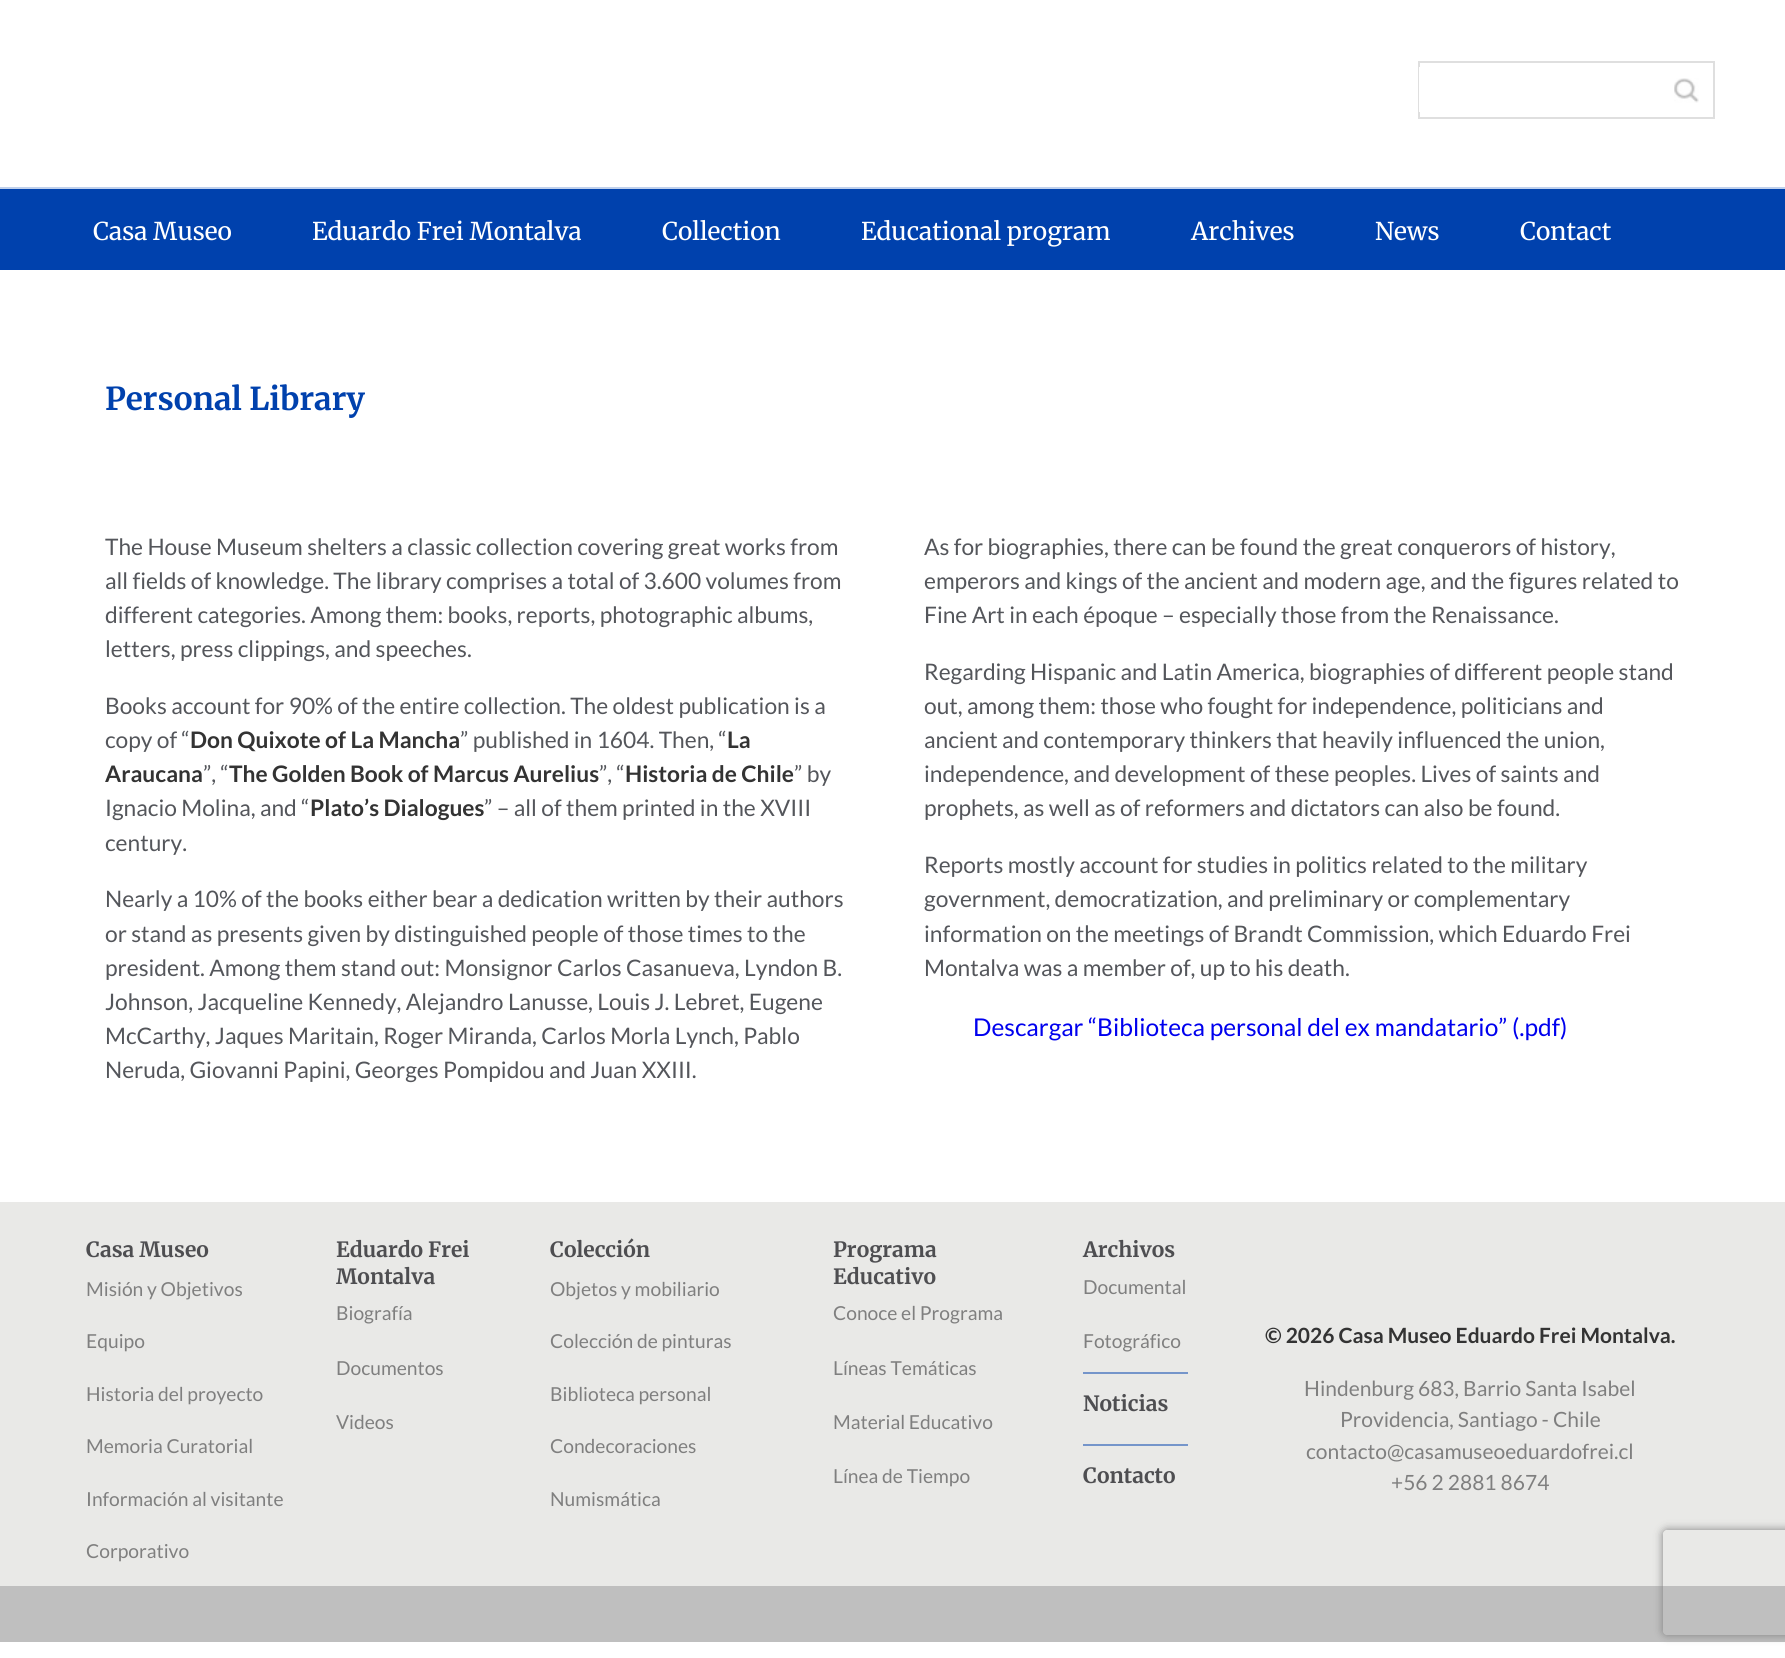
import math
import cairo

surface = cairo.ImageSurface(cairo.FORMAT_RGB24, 1785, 1658)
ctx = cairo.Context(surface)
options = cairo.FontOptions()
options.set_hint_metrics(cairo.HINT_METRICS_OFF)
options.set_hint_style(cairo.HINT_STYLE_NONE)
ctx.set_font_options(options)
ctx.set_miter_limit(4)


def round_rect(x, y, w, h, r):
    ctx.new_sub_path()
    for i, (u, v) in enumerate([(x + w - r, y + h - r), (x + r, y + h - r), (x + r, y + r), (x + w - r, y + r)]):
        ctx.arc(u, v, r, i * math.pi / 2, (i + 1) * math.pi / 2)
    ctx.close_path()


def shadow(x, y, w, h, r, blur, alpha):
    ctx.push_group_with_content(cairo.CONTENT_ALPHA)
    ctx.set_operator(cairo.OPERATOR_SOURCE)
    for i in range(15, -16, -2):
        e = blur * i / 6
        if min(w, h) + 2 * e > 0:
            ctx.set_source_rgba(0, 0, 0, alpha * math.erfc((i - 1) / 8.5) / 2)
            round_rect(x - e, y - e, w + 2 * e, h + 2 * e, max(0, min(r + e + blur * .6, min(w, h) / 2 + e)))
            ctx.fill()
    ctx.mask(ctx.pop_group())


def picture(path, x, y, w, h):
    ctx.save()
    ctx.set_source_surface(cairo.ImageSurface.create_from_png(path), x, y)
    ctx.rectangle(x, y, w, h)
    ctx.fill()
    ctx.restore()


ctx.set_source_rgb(1, 1, 1)
ctx.paint()
ctx.rectangle(1419, 62, 295, 56)
ctx.set_source_rgb(0.875, 0.875, 0.875)
ctx.stroke()
ctx.set_source_rgb(1, 1, 1)
ctx.rectangle(1419, 67, 1, 45)
ctx.fill()
picture("img1.png", 1674, 78, 25, 25)
ctx.set_source_rgb(0.749, 0.816, 0.922)
ctx.rectangle(0, 187, 1785, 2)
ctx.fill()
ctx.set_source_rgb(0, 0.255, 0.678)
ctx.rectangle(0, 189, 1785, 81)
ctx.fill()
ctx.select_font_face("Merriweather")
ctx.set_font_size(24.5)
ctx.set_source_rgb(1, 1, 1)
ctx.move_to(93, 240)
ctx.show_text("Casa Museo")
ctx.move_to(312, 240)
ctx.show_text("Eduardo Frei Montalva")
ctx.move_to(662, 240)
ctx.show_text("Collection")
ctx.move_to(861, 240)
ctx.show_text("Educational program")
ctx.move_to(1191, 240)
ctx.show_text("Archives")
ctx.move_to(1375, 240)
ctx.show_text("News")
ctx.move_to(1520, 240)
ctx.show_text("Contact")
ctx.select_font_face("Merriweather", cairo.FONT_SLANT_NORMAL, cairo.FONT_WEIGHT_BOLD)
ctx.set_font_size(31.5)
ctx.set_source_rgb(0, 0.255, 0.678)
ctx.move_to(105, 410)
ctx.show_text("Personal Library")
ctx.select_font_face("Lato")
ctx.set_font_size(22.75)
ctx.set_source_rgb(0.329, 0.337, 0.357)
ctx.move_to(105, 555)
ctx.show_text("The House Museum shelters a classic collection covering great works from")
ctx.move_to(105, 589)
ctx.show_text("all fields of knowledge. The library comprises a total of 3.600 volumes from")
ctx.move_to(105, 623)
ctx.show_text("different categories. Among them: books, reports, photographic albums,")
ctx.move_to(105, 657)
ctx.show_text("letters, press clippings, and speeches.")
ctx.move_to(105, 714)
ctx.show_text("Books account for 90% of the entire collection. The oldest publication is a")
ctx.move_to(105, 748)
ctx.show_text("copy of “")
ctx.select_font_face("Lato", cairo.FONT_SLANT_NORMAL, cairo.FONT_WEIGHT_BOLD)
ctx.set_source_rgb(0.2, 0.2, 0.2)
ctx.move_to(190, 748)
ctx.show_text("Don Quixote of La Mancha")
ctx.select_font_face("Lato")
ctx.set_source_rgb(0.329, 0.337, 0.357)
ctx.move_to(460, 748)
ctx.show_text("” published in 1604. Then, “")
ctx.select_font_face("Lato", cairo.FONT_SLANT_NORMAL, cairo.FONT_WEIGHT_BOLD)
ctx.set_source_rgb(0.2, 0.2, 0.2)
ctx.move_to(727, 748)
ctx.show_text("La")
ctx.move_to(105, 782)
ctx.show_text("Araucana")
ctx.select_font_face("Lato")
ctx.set_source_rgb(0.329, 0.337, 0.357)
ctx.move_to(203, 782)
ctx.show_text("”, “")
ctx.select_font_face("Lato", cairo.FONT_SLANT_NORMAL, cairo.FONT_WEIGHT_BOLD)
ctx.set_source_rgb(0.2, 0.2, 0.2)
ctx.move_to(229, 782)
ctx.show_text("The Golden Book of Marcus Aurelius")
ctx.select_font_face("Lato")
ctx.set_source_rgb(0.329, 0.337, 0.357)
ctx.move_to(599, 782)
ctx.show_text("”, “")
ctx.select_font_face("Lato", cairo.FONT_SLANT_NORMAL, cairo.FONT_WEIGHT_BOLD)
ctx.set_source_rgb(0.2, 0.2, 0.2)
ctx.move_to(625, 782)
ctx.show_text("Historia de Chile")
ctx.select_font_face("Lato")
ctx.set_source_rgb(0.329, 0.337, 0.357)
ctx.move_to(794, 782)
ctx.show_text("” by")
ctx.move_to(105, 816)
ctx.show_text("Ignacio Molina, and “")
ctx.select_font_face("Lato", cairo.FONT_SLANT_NORMAL, cairo.FONT_WEIGHT_BOLD)
ctx.set_source_rgb(0.2, 0.2, 0.2)
ctx.move_to(310, 816)
ctx.show_text("Plato’s Dialogues")
ctx.select_font_face("Lato")
ctx.set_source_rgb(0.329, 0.337, 0.357)
ctx.move_to(484, 816)
ctx.show_text("” – all of them printed in the XVIII")
ctx.move_to(105, 851)
ctx.show_text("century.")
ctx.move_to(105, 907)
ctx.show_text("Nearly a 10% of the books either bear a dedication written by their authors")
ctx.move_to(105, 942)
ctx.show_text("or stand as presents given by distinguished people of those times to the")
ctx.move_to(105, 976)
ctx.show_text("president. Among them stand out: Monsignor Carlos Casanueva, Lyndon B.")
ctx.move_to(105, 1010)
ctx.show_text("Johnson, Jacqueline Kennedy, Alejandro Lanusse, Louis J. Lebret, Eugene")
ctx.move_to(105, 1044)
ctx.show_text("McCarthy, Jaques Maritain, Roger Miranda, Carlos Morla Lynch, Pablo")
ctx.move_to(105, 1078)
ctx.show_text("Neruda, Giovanni Papini, Georges Pompidou and Juan XXIII.")
ctx.move_to(924, 555)
ctx.show_text("As for biographies, there can be found the great conquerors of history,")
ctx.move_to(924, 589)
ctx.show_text("emperors and kings of the ancient and modern age, and the figures related to")
ctx.move_to(924, 623)
ctx.show_text("Fine Art in each époque – especially those from the Renaissance.")
ctx.move_to(924, 680)
ctx.show_text("Regarding Hispanic and Latin America, biographies of different people stand")
ctx.move_to(924, 714)
ctx.show_text("out, among them: those who fought for independence, politicians and")
ctx.move_to(924, 748)
ctx.show_text("ancient and contemporary thinkers that heavily influenced the union,")
ctx.move_to(924, 782)
ctx.show_text("independence, and development of these peoples. Lives of saints and")
ctx.move_to(924, 816)
ctx.show_text("prophets, as well as of reformers and dictators can also be found.")
ctx.move_to(924, 873)
ctx.show_text("Reports mostly account for studies in politics related to the military")
ctx.move_to(924, 907)
ctx.show_text("government, democratization, and preliminary or complementary")
ctx.move_to(924, 942)
ctx.show_text("information on the meetings of Brandt Commission, which Eduardo Frei")
ctx.move_to(924, 976)
ctx.show_text("Montalva was a member of, up to his death.")
ctx.set_font_size(24.5)
ctx.set_source_rgb(0, 0, 0.933)
ctx.move_to(973, 1036)
ctx.show_text("Descargar “Biblioteca personal del ex mandatario” (.pdf)")
ctx.set_source_rgb(0.914, 0.914, 0.906)
ctx.rectangle(0, 1202, 1785, 384)
ctx.fill()
ctx.select_font_face("Merriweather", cairo.FONT_SLANT_NORMAL, cairo.FONT_WEIGHT_BOLD)
ctx.set_font_size(21)
ctx.set_source_rgb(0.306, 0.306, 0.318)
ctx.move_to(86, 1257)
ctx.show_text("Casa Museo")
ctx.select_font_face("Lato")
ctx.set_font_size(19.25)
ctx.set_source_rgb(0.498, 0.498, 0.498)
ctx.move_to(86, 1296)
ctx.show_text("Misión y Objetivos")
ctx.move_to(86, 1348)
ctx.show_text("Equipo")
ctx.move_to(86, 1401)
ctx.show_text("Historia del proyecto")
ctx.move_to(86, 1453)
ctx.show_text("Memoria Curatorial")
ctx.move_to(86, 1506)
ctx.show_text("Información al visitante")
ctx.move_to(86, 1558)
ctx.show_text("Corporativo")
ctx.select_font_face("Merriweather", cairo.FONT_SLANT_NORMAL, cairo.FONT_WEIGHT_BOLD)
ctx.set_font_size(21)
ctx.set_source_rgb(0.306, 0.306, 0.318)
ctx.move_to(336, 1257)
ctx.show_text("Eduardo Frei")
ctx.move_to(336, 1284)
ctx.show_text("Montalva")
ctx.select_font_face("Lato")
ctx.set_font_size(19.25)
ctx.set_source_rgb(0.498, 0.498, 0.498)
ctx.move_to(336, 1320)
ctx.show_text("Biografía")
ctx.move_to(336, 1375)
ctx.show_text("Documentos")
ctx.move_to(336, 1429)
ctx.show_text("Videos")
ctx.select_font_face("Merriweather", cairo.FONT_SLANT_NORMAL, cairo.FONT_WEIGHT_BOLD)
ctx.set_font_size(21)
ctx.set_source_rgb(0.306, 0.306, 0.318)
ctx.move_to(550, 1257)
ctx.show_text("Colección")
ctx.select_font_face("Lato")
ctx.set_font_size(19.25)
ctx.set_source_rgb(0.498, 0.498, 0.498)
ctx.move_to(550, 1296)
ctx.show_text("Objetos y mobiliario")
ctx.move_to(550, 1348)
ctx.show_text("Colección de pinturas")
ctx.move_to(550, 1401)
ctx.show_text("Biblioteca personal")
ctx.move_to(550, 1453)
ctx.show_text("Condecoraciones")
ctx.move_to(550, 1506)
ctx.show_text("Numismática")
ctx.select_font_face("Merriweather", cairo.FONT_SLANT_NORMAL, cairo.FONT_WEIGHT_BOLD)
ctx.set_font_size(21)
ctx.set_source_rgb(0.306, 0.306, 0.318)
ctx.move_to(833, 1257)
ctx.show_text("Programa")
ctx.move_to(833, 1284)
ctx.show_text("Educativo")
ctx.select_font_face("Lato")
ctx.set_font_size(19.25)
ctx.set_source_rgb(0.498, 0.498, 0.498)
ctx.move_to(833, 1320)
ctx.show_text("Conoce el Programa")
ctx.move_to(833, 1375)
ctx.show_text("Líneas Temáticas")
ctx.move_to(833, 1429)
ctx.show_text("Material Educativo")
ctx.move_to(833, 1483)
ctx.show_text("Línea de Tiempo")
ctx.select_font_face("Merriweather", cairo.FONT_SLANT_NORMAL, cairo.FONT_WEIGHT_BOLD)
ctx.set_font_size(21)
ctx.set_source_rgb(0.306, 0.306, 0.318)
ctx.move_to(1083, 1257)
ctx.show_text("Archivos")
ctx.select_font_face("Lato")
ctx.set_font_size(19.25)
ctx.set_source_rgb(0.498, 0.498, 0.498)
ctx.move_to(1083, 1294)
ctx.show_text("Documental")
ctx.move_to(1083, 1348)
ctx.show_text("Fotográfico")
ctx.set_source_rgb(0.459, 0.584, 0.792)
ctx.rectangle(1083, 1372, 105, 2)
ctx.fill()
ctx.select_font_face("Merriweather", cairo.FONT_SLANT_NORMAL, cairo.FONT_WEIGHT_BOLD)
ctx.set_font_size(21)
ctx.set_source_rgb(0.306, 0.306, 0.318)
ctx.move_to(1083, 1411)
ctx.show_text("Noticias")
ctx.set_source_rgb(0.459, 0.584, 0.792)
ctx.rectangle(1083, 1444, 105, 2)
ctx.fill()
ctx.set_source_rgb(0.306, 0.306, 0.318)
ctx.move_to(1083, 1483)
ctx.show_text("Contacto")
ctx.select_font_face("Lato", cairo.FONT_SLANT_NORMAL, cairo.FONT_WEIGHT_BOLD)
ctx.set_source_rgb(0.2, 0.2, 0.2)
ctx.move_to(1265, 1343)
ctx.show_text("© 2026 Casa Museo Eduardo Frei Montalva.")
ctx.select_font_face("Lato")
ctx.set_source_rgb(0.498, 0.498, 0.498)
ctx.move_to(1304, 1396)
ctx.show_text("Hindenburg 683, Barrio Santa Isabel")
ctx.move_to(1340, 1427)
ctx.show_text("Providencia, Santiago - Chile")
ctx.move_to(1306, 1459)
ctx.show_text("contacto@casamuseoeduardofrei.cl")
ctx.move_to(1391, 1490)
ctx.show_text("+56 2 2881 8674")
ctx.set_source_rgb(0.749, 0.749, 0.749)
ctx.rectangle(0, 1586, 1785, 56)
ctx.fill()
ctx.save()
ctx.set_fill_rule(cairo.FILL_RULE_EVEN_ODD)
ctx.new_path()
ctx.move_to(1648, 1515)
ctx.line_to(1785, 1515)
ctx.line_to(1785, 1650)
ctx.line_to(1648, 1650)
ctx.close_path()
ctx.move_to(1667, 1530)
ctx.line_to(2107, 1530)
ctx.curve_to(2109, 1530, 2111, 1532, 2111, 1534)
ctx.line_to(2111, 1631)
ctx.curve_to(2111, 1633, 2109, 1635, 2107, 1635)
ctx.line_to(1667, 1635)
ctx.curve_to(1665, 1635, 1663, 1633, 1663, 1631)
ctx.line_to(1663, 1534)
ctx.curve_to(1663, 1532, 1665, 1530, 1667, 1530)
ctx.close_path()
ctx.clip()
ctx.set_source_rgb(0.502, 0.502, 0.502)
shadow(1663, 1530, 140, 105, 4, 4.5, 1)
ctx.restore()
surface.write_to_png("page.png")
